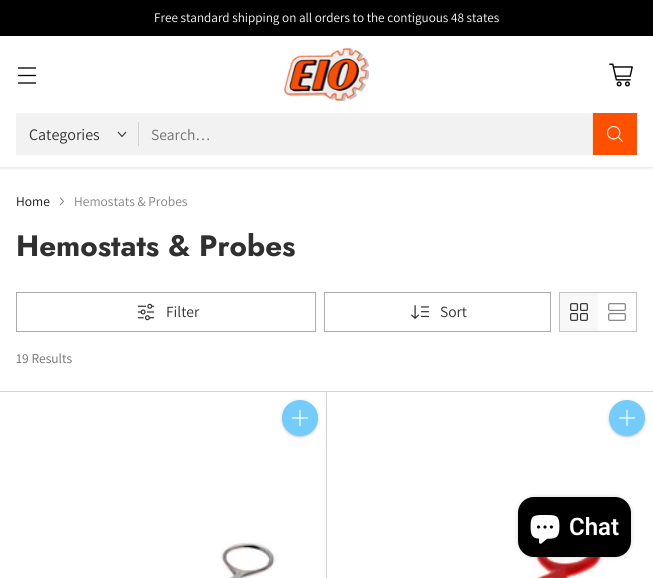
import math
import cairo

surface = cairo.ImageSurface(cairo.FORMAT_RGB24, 653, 578)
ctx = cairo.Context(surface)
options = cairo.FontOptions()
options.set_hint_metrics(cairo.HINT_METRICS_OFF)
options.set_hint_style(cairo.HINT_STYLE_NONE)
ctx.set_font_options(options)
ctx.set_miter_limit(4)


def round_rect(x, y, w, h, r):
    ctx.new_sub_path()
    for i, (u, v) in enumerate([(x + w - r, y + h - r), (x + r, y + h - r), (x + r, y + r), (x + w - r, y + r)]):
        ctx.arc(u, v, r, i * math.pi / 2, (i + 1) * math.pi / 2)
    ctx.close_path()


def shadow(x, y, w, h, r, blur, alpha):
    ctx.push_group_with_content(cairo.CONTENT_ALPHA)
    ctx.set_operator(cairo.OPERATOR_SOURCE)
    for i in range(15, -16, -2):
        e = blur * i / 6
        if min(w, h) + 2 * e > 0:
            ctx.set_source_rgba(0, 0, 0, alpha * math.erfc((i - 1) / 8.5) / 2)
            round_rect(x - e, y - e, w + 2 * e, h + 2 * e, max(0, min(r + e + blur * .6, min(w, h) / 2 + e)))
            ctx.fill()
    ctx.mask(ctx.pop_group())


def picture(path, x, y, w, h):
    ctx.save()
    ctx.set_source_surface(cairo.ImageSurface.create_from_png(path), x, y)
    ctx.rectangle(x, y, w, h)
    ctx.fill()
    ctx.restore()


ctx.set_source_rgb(1, 1, 1)
ctx.paint()
ctx.save()
ctx.rectangle(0, 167, 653, 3)
ctx.clip()
ctx.set_source_rgb(0, 0, 0)
shadow(0, 36, 653, 131, 0, 2.5, 0.15)
ctx.restore()
ctx.set_source_rgb(0, 0, 0)
ctx.rectangle(0, 0, 653, 36)
ctx.fill()
ctx.select_font_face("Assistant")
ctx.set_font_size(13.15)
ctx.set_source_rgb(1, 1, 1)
ctx.move_to(154, 22)
ctx.show_text("Free standard shipping on all orders to the contiguous 48 states")
ctx.new_path()
ctx.move_to(18, 75.5)
ctx.line_to(36, 75.5)
ctx.move_to(18, 68)
ctx.line_to(36, 68)
ctx.move_to(18, 83)
ctx.line_to(36, 83)
ctx.set_source_rgb(0, 0, 0)
ctx.set_line_width(1.3)
ctx.stroke()
picture("img1.png", 284, 48, 85, 53)
picture("img2.png", 609, 63, 24, 24)
ctx.rectangle(16.5, 113.5, 620, 41)
ctx.set_source_rgb(0.949, 0.949, 0.949)
ctx.set_line_width(1)
ctx.stroke()
ctx.rectangle(17, 114, 576, 40)
ctx.fill()
ctx.set_font_size(16)
ctx.set_source_rgb(0.188, 0.188, 0.188)
ctx.move_to(29, 140)
ctx.show_text("Categories")
ctx.new_path()
ctx.move_to(118, 132)
ctx.line_to(122, 136.5)
ctx.line_to(126, 132)
ctx.set_line_width(1.1)
ctx.stroke()
ctx.set_source_rgb(0.824, 0.824, 0.824)
ctx.rectangle(138, 122, 1, 24)
ctx.fill()
ctx.set_font_size(15.5)
ctx.set_source_rgb(0.431, 0.431, 0.431)
ctx.move_to(151, 140)
ctx.show_text("Search…")
ctx.set_source_rgb(1, 0.314, 0)
ctx.rectangle(593, 113, 44, 42)
ctx.fill()
picture("img3.png", 607, 126, 16, 16)
ctx.set_font_size(13.5)
ctx.set_source_rgb(0.082, 0.082, 0.082)
ctx.move_to(16, 206)
ctx.show_text("Home")
ctx.new_path()
ctx.move_to(60, 205)
ctx.line_to(63.5, 201.5)
ctx.line_to(60, 197.5)
ctx.set_source_rgb(0.514, 0.514, 0.514)
ctx.set_line_width(1)
ctx.stroke()
ctx.move_to(74, 206)
ctx.show_text("Hemostats & Probes")
ctx.select_font_face("Jost", cairo.FONT_SLANT_NORMAL, cairo.FONT_WEIGHT_BOLD)
ctx.set_font_size(29.5)
ctx.set_source_rgb(0.188, 0.188, 0.188)
ctx.move_to(16, 256)
ctx.show_text("Hemostats & Probes")
ctx.rectangle(16.5, 292.5, 299, 39)
ctx.set_source_rgb(0.675, 0.675, 0.675)
ctx.stroke()
picture("img4.png", 137, 303, 18, 18)
ctx.select_font_face("Assistant")
ctx.set_font_size(15.5)
ctx.set_source_rgb(0.188, 0.188, 0.188)
ctx.move_to(166, 317)
ctx.show_text("Filter")
ctx.rectangle(324.5, 292.5, 226, 39)
ctx.set_source_rgb(0.675, 0.675, 0.675)
ctx.stroke()
picture("img5.png", 411, 305, 18, 14)
ctx.set_source_rgb(0.188, 0.188, 0.188)
ctx.move_to(440, 317)
ctx.show_text("Sort")
ctx.rectangle(559.5, 292.5, 77, 39)
ctx.set_source_rgb(0.757, 0.757, 0.757)
ctx.stroke()
ctx.set_source_rgb(0.969, 0.969, 0.969)
ctx.rectangle(560, 293, 38, 38)
ctx.fill()
picture("img6.png", 570, 303, 18, 18)
picture("img7.png", 608, 303, 18, 18)
ctx.set_font_size(13.5)
ctx.set_source_rgb(0.431, 0.431, 0.431)
ctx.move_to(16, 363)
ctx.show_text("19 Results")
ctx.rectangle(-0.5, 391.5, 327, 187)
ctx.set_source_rgb(0.824, 0.824, 0.824)
ctx.stroke()
ctx.set_source_rgb(0, 0, 0)
shadow(282, 401, 36, 36, 18, 2, 0.15)
shadow(282, 401, 36, 36, 18, 0.5, 0.1)
ctx.set_source_rgb(0.455, 0.8, 0.98)
ctx.arc(300, 418, 18, 0, 2 * math.pi)
ctx.fill()
picture("img8.png", 292, 410, 16, 16)
picture("img9.png", 219, 542, 58, 36)
ctx.rectangle(326.5, 391.5, 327, 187)
ctx.set_source_rgb(0.824, 0.824, 0.824)
ctx.stroke()
ctx.set_source_rgb(0, 0, 0)
shadow(609, 401, 36, 36, 18, 2, 0.15)
shadow(609, 401, 36, 36, 18, 0.5, 0.1)
ctx.set_source_rgb(0.455, 0.8, 0.98)
ctx.arc(627, 418, 18, 0, 2 * math.pi)
ctx.fill()
picture("img8.png", 619, 410, 16, 16)
picture("img10.png", 529, 556, 78, 22)
ctx.set_source_rgb(0, 0, 0)
shadow(518, 497, 113, 60, 16, 2.5, 0.15)
ctx.set_source_rgb(0, 0, 0)
round_rect(518, 497, 113, 60, 16)
ctx.fill()
picture("img11.png", 530, 515, 30, 29)
ctx.select_font_face("Roboto SemiBold")
ctx.set_font_size(24)
ctx.set_source_rgb(1, 1, 1)
ctx.move_to(569, 535)
ctx.show_text("Chat")
surface.write_to_png("page.png")
